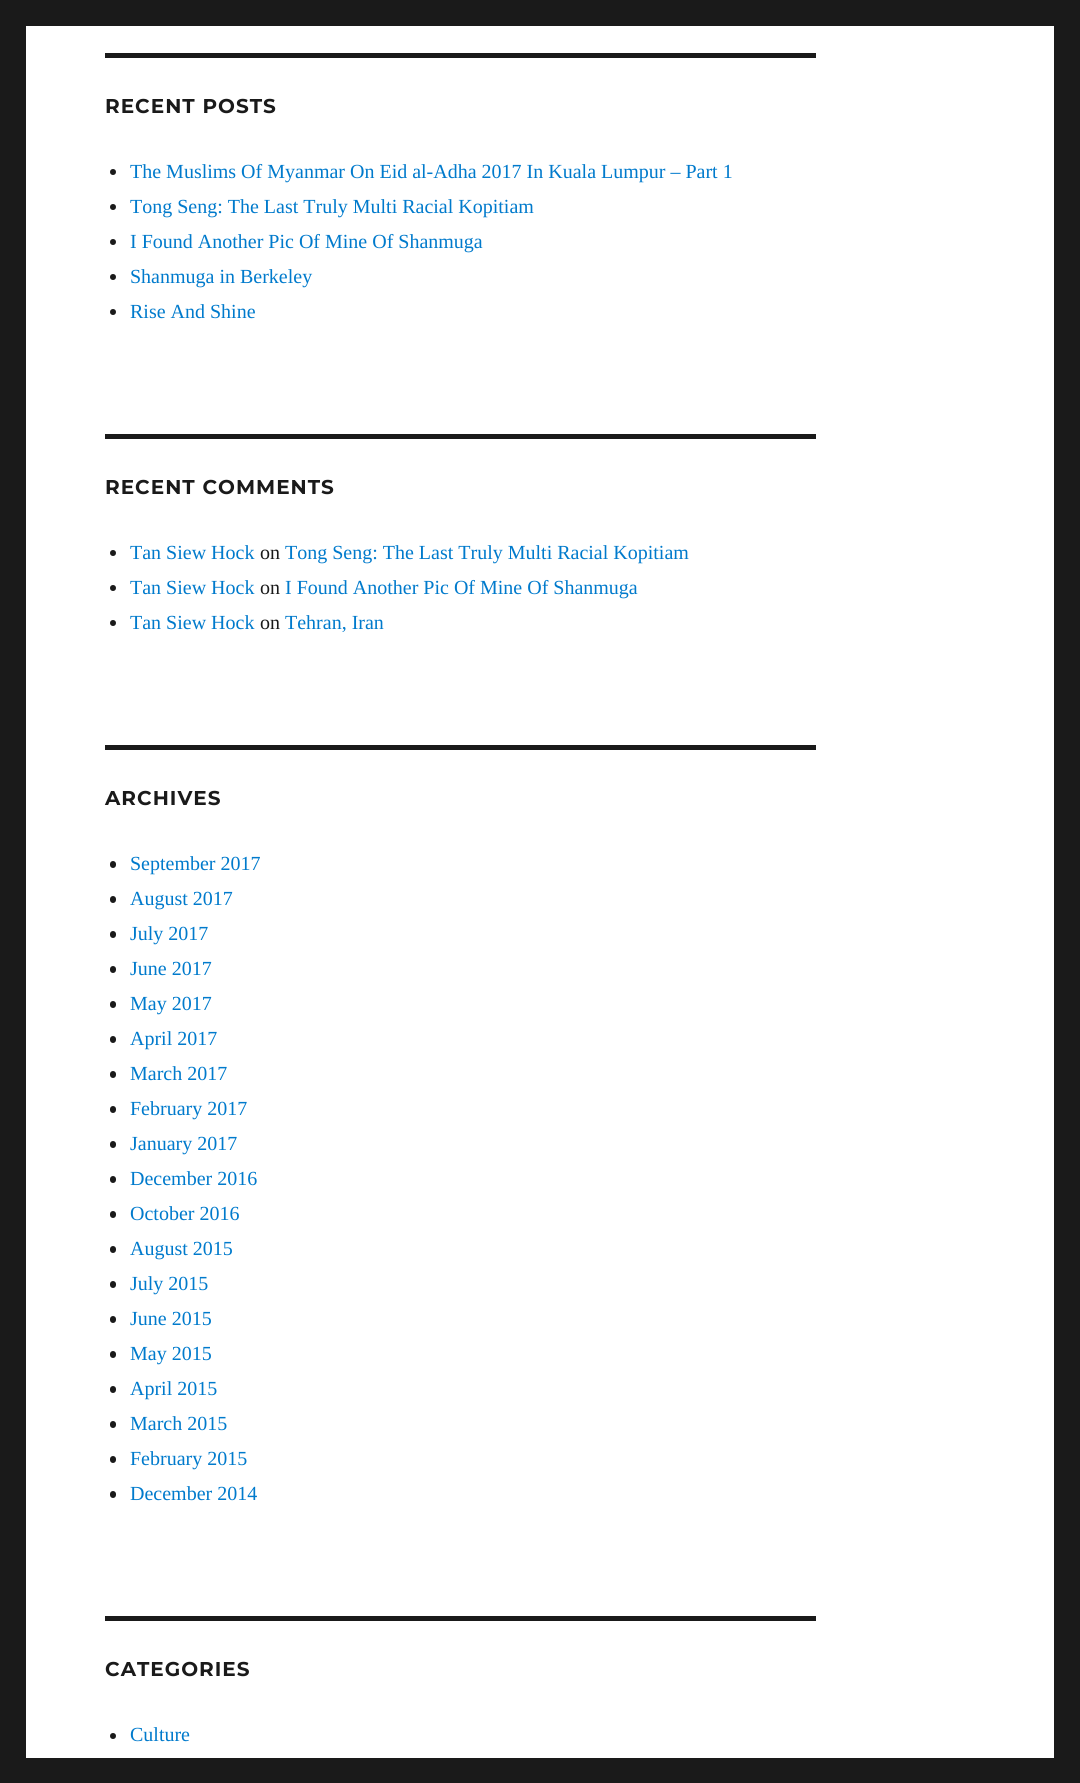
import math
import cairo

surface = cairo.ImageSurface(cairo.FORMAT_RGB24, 1080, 1783)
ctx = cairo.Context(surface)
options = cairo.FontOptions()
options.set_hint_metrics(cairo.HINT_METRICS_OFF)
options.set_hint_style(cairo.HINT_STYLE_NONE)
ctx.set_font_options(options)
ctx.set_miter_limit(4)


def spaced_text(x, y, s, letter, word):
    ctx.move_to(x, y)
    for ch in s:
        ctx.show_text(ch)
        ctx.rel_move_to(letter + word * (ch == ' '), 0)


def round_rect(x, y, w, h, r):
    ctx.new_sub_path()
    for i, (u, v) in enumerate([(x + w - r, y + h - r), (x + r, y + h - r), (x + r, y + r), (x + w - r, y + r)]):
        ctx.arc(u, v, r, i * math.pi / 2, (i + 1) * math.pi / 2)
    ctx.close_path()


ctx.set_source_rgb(0.102, 0.102, 0.102)
ctx.paint()
ctx.set_source_rgb(1, 1, 1)
ctx.rectangle(26, 26, 1028, 1732)
ctx.fill()
ctx.set_source_rgb(0.102, 0.102, 0.102)
ctx.rectangle(105, 53, 711, 5)
ctx.fill()
ctx.select_font_face("Montserrat Thin")
ctx.set_font_size(20)
spaced_text(105, 113, "RECENT POSTS", 1, 0)
ctx.new_path()
ctx.arc(113, 172, 3, 0, 2 * math.pi)
ctx.fill()
ctx.select_font_face("Liberation Serif")
ctx.set_source_rgb(0, 0.478, 0.8)
ctx.move_to(130, 178)
ctx.show_text("The Muslims Of Myanmar On Eid al-Adha 2017 In Kuala Lumpur – Part 1")
ctx.set_source_rgb(0.102, 0.102, 0.102)
ctx.new_path()
ctx.arc(113, 207, 3, 0, 2 * math.pi)
ctx.fill()
ctx.set_source_rgb(0, 0.478, 0.8)
ctx.move_to(130, 213)
ctx.show_text("Tong Seng: The Last Truly Multi Racial Kopitiam")
ctx.set_source_rgb(0.102, 0.102, 0.102)
ctx.new_path()
ctx.arc(113, 242, 3, 0, 2 * math.pi)
ctx.fill()
ctx.set_source_rgb(0, 0.478, 0.8)
ctx.move_to(130, 248)
ctx.show_text("I Found Another Pic Of Mine Of Shanmuga")
ctx.set_source_rgb(0.102, 0.102, 0.102)
ctx.new_path()
ctx.arc(113, 277, 3, 0, 2 * math.pi)
ctx.fill()
ctx.set_source_rgb(0, 0.478, 0.8)
ctx.move_to(130, 283)
ctx.show_text("Shanmuga in Berkeley")
ctx.set_source_rgb(0.102, 0.102, 0.102)
ctx.new_path()
ctx.arc(113, 312, 3, 0, 2 * math.pi)
ctx.fill()
ctx.set_source_rgb(0, 0.478, 0.8)
ctx.move_to(130, 318)
ctx.show_text("Rise And Shine")
ctx.set_source_rgb(0.102, 0.102, 0.102)
ctx.rectangle(105, 434, 711, 5)
ctx.fill()
ctx.select_font_face("Montserrat Thin")
spaced_text(105, 494, "RECENT COMMENTS", 1, 0)
ctx.new_path()
ctx.arc(113, 553, 3, 0, 2 * math.pi)
ctx.fill()
ctx.select_font_face("Liberation Serif")
ctx.set_source_rgb(0, 0.478, 0.8)
ctx.move_to(130, 559)
ctx.show_text("Tan Siew Hock")
ctx.set_source_rgb(0.102, 0.102, 0.102)
ctx.move_to(260, 559)
ctx.show_text("on")
ctx.set_source_rgb(0, 0.478, 0.8)
ctx.move_to(285, 559)
ctx.show_text("Tong Seng: The Last Truly Multi Racial Kopitiam")
ctx.set_source_rgb(0.102, 0.102, 0.102)
ctx.new_path()
ctx.arc(113, 588, 3, 0, 2 * math.pi)
ctx.fill()
ctx.set_source_rgb(0, 0.478, 0.8)
ctx.move_to(130, 594)
ctx.show_text("Tan Siew Hock")
ctx.set_source_rgb(0.102, 0.102, 0.102)
ctx.move_to(260, 594)
ctx.show_text("on")
ctx.set_source_rgb(0, 0.478, 0.8)
ctx.move_to(285, 594)
ctx.show_text("I Found Another Pic Of Mine Of Shanmuga")
ctx.set_source_rgb(0.102, 0.102, 0.102)
ctx.new_path()
ctx.arc(113, 623, 3, 0, 2 * math.pi)
ctx.fill()
ctx.set_source_rgb(0, 0.478, 0.8)
ctx.move_to(130, 629)
ctx.show_text("Tan Siew Hock")
ctx.set_source_rgb(0.102, 0.102, 0.102)
ctx.move_to(260, 629)
ctx.show_text("on")
ctx.set_source_rgb(0, 0.478, 0.8)
ctx.move_to(285, 629)
ctx.show_text("Tehran, Iran")
ctx.set_source_rgb(0.102, 0.102, 0.102)
ctx.rectangle(105, 745, 711, 5)
ctx.fill()
ctx.select_font_face("Montserrat Thin")
spaced_text(105, 805, "ARCHIVES", 1, 0)
round_rect(110, 861, 6, 7, 3)
ctx.fill()
ctx.select_font_face("Liberation Serif")
ctx.set_source_rgb(0, 0.478, 0.8)
ctx.move_to(130, 870)
ctx.show_text("September 2017")
ctx.set_source_rgb(0.102, 0.102, 0.102)
round_rect(110, 896, 6, 7, 3)
ctx.fill()
ctx.set_source_rgb(0, 0.478, 0.8)
ctx.move_to(130, 905)
ctx.show_text("August 2017")
ctx.set_source_rgb(0.102, 0.102, 0.102)
round_rect(110, 931, 6, 7, 3)
ctx.fill()
ctx.set_source_rgb(0, 0.478, 0.8)
ctx.move_to(130, 940)
ctx.show_text("July 2017")
ctx.set_source_rgb(0.102, 0.102, 0.102)
round_rect(110, 966, 6, 7, 3)
ctx.fill()
ctx.set_source_rgb(0, 0.478, 0.8)
ctx.move_to(130, 975)
ctx.show_text("June 2017")
ctx.set_source_rgb(0.102, 0.102, 0.102)
round_rect(110, 1001, 6, 7, 3)
ctx.fill()
ctx.set_source_rgb(0, 0.478, 0.8)
ctx.move_to(130, 1010)
ctx.show_text("May 2017")
ctx.set_source_rgb(0.102, 0.102, 0.102)
round_rect(110, 1036, 6, 7, 3)
ctx.fill()
ctx.set_source_rgb(0, 0.478, 0.8)
ctx.move_to(130, 1045)
ctx.show_text("April 2017")
ctx.set_source_rgb(0.102, 0.102, 0.102)
round_rect(110, 1071, 6, 7, 3)
ctx.fill()
ctx.set_source_rgb(0, 0.478, 0.8)
ctx.move_to(130, 1080)
ctx.show_text("March 2017")
ctx.set_source_rgb(0.102, 0.102, 0.102)
round_rect(110, 1106, 6, 7, 3)
ctx.fill()
ctx.set_source_rgb(0, 0.478, 0.8)
ctx.move_to(130, 1115)
ctx.show_text("February 2017")
ctx.set_source_rgb(0.102, 0.102, 0.102)
round_rect(110, 1141, 6, 7, 3)
ctx.fill()
ctx.set_source_rgb(0, 0.478, 0.8)
ctx.move_to(130, 1150)
ctx.show_text("January 2017")
ctx.set_source_rgb(0.102, 0.102, 0.102)
round_rect(110, 1176, 6, 7, 3)
ctx.fill()
ctx.set_source_rgb(0, 0.478, 0.8)
ctx.move_to(130, 1185)
ctx.show_text("December 2016")
ctx.set_source_rgb(0.102, 0.102, 0.102)
round_rect(110, 1211, 6, 7, 3)
ctx.fill()
ctx.set_source_rgb(0, 0.478, 0.8)
ctx.move_to(130, 1220)
ctx.show_text("October 2016")
ctx.set_source_rgb(0.102, 0.102, 0.102)
round_rect(110, 1246, 6, 7, 3)
ctx.fill()
ctx.set_source_rgb(0, 0.478, 0.8)
ctx.move_to(130, 1255)
ctx.show_text("August 2015")
ctx.set_source_rgb(0.102, 0.102, 0.102)
round_rect(110, 1281, 6, 7, 3)
ctx.fill()
ctx.set_source_rgb(0, 0.478, 0.8)
ctx.move_to(130, 1290)
ctx.show_text("July 2015")
ctx.set_source_rgb(0.102, 0.102, 0.102)
round_rect(110, 1316, 6, 7, 3)
ctx.fill()
ctx.set_source_rgb(0, 0.478, 0.8)
ctx.move_to(130, 1325)
ctx.show_text("June 2015")
ctx.set_source_rgb(0.102, 0.102, 0.102)
round_rect(110, 1351, 6, 7, 3)
ctx.fill()
ctx.set_source_rgb(0, 0.478, 0.8)
ctx.move_to(130, 1360)
ctx.show_text("May 2015")
ctx.set_source_rgb(0.102, 0.102, 0.102)
round_rect(110, 1386, 6, 7, 3)
ctx.fill()
ctx.set_source_rgb(0, 0.478, 0.8)
ctx.move_to(130, 1395)
ctx.show_text("April 2015")
ctx.set_source_rgb(0.102, 0.102, 0.102)
round_rect(110, 1421, 6, 7, 3)
ctx.fill()
ctx.set_source_rgb(0, 0.478, 0.8)
ctx.move_to(130, 1430)
ctx.show_text("March 2015")
ctx.set_source_rgb(0.102, 0.102, 0.102)
round_rect(110, 1456, 6, 7, 3)
ctx.fill()
ctx.set_source_rgb(0, 0.478, 0.8)
ctx.move_to(130, 1465)
ctx.show_text("February 2015")
ctx.set_source_rgb(0.102, 0.102, 0.102)
round_rect(110, 1491, 6, 7, 3)
ctx.fill()
ctx.set_source_rgb(0, 0.478, 0.8)
ctx.move_to(130, 1500)
ctx.show_text("December 2014")
ctx.set_source_rgb(0.102, 0.102, 0.102)
ctx.rectangle(105, 1616, 711, 5)
ctx.fill()
ctx.select_font_face("Montserrat Thin")
spaced_text(105, 1676, "CATEGORIES", 1, 0)
ctx.new_path()
ctx.arc(113, 1736, 3, 0, 2 * math.pi)
ctx.fill()
ctx.select_font_face("Liberation Serif")
ctx.set_source_rgb(0, 0.478, 0.8)
ctx.move_to(130, 1741)
ctx.show_text("Culture")
surface.write_to_png("page.png")
